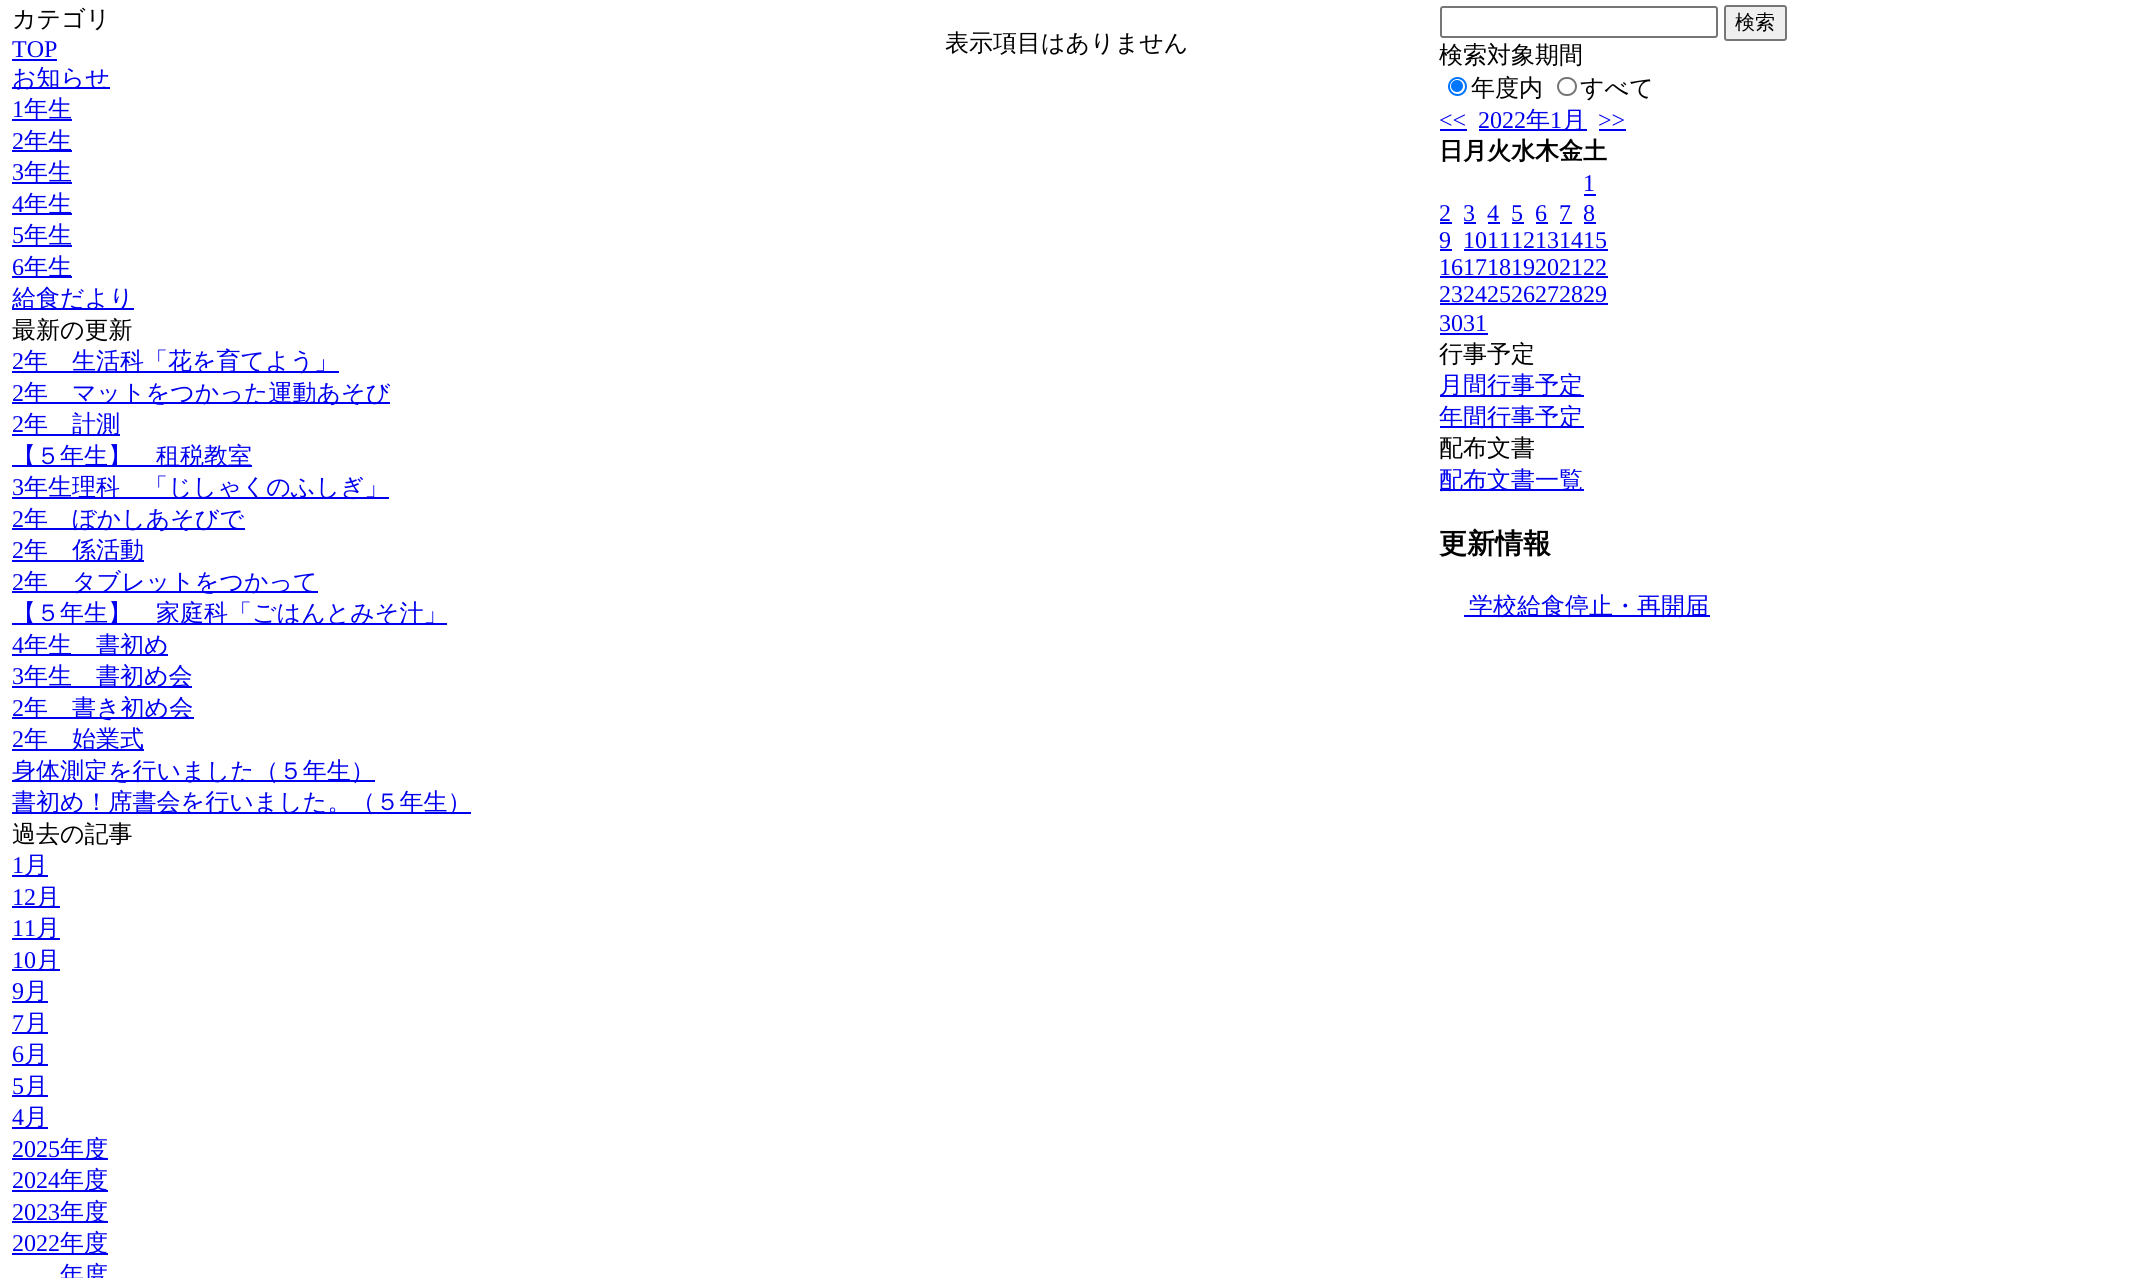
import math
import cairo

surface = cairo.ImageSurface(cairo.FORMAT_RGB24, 2156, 1278)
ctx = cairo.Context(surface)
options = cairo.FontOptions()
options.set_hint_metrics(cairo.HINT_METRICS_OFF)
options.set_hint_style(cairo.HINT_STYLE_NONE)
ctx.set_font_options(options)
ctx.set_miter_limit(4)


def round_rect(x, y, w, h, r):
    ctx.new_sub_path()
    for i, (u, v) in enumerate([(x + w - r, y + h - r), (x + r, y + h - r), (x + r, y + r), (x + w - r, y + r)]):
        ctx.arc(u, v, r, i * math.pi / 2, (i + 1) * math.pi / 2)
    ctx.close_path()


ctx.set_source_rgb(1, 1, 1)
ctx.paint()
ctx.select_font_face("WenQuanYi Zen Hei Medium")
ctx.set_font_size(24)
ctx.set_source_rgb(0, 0, 0)
ctx.move_to(12, 27)
ctx.show_text("カテゴリ")
ctx.select_font_face("Liberation Serif")
ctx.set_source_rgb(0, 0, 0.933)
ctx.move_to(12, 57)
ctx.show_text("TOP")
ctx.rectangle(12, 59, 45, 2)
ctx.fill()
ctx.rectangle(12, 87, 98, 2)
ctx.fill()
ctx.select_font_face("WenQuanYi Zen Hei Medium")
ctx.move_to(12, 86)
ctx.show_text("お知らせ")
ctx.select_font_face("Liberation Serif")
ctx.move_to(12, 117)
ctx.show_text("1")
ctx.rectangle(12, 119, 60, 2)
ctx.fill()
ctx.select_font_face("WenQuanYi Zen Hei Medium")
ctx.move_to(24, 117)
ctx.show_text("年生")
ctx.select_font_face("Liberation Serif")
ctx.move_to(12, 149)
ctx.show_text("2")
ctx.rectangle(12, 150, 60, 2)
ctx.fill()
ctx.select_font_face("WenQuanYi Zen Hei Medium")
ctx.move_to(24, 149)
ctx.show_text("年生")
ctx.select_font_face("Liberation Serif")
ctx.move_to(12, 180)
ctx.show_text("3")
ctx.rectangle(12, 182, 60, 2)
ctx.fill()
ctx.select_font_face("WenQuanYi Zen Hei Medium")
ctx.move_to(24, 180)
ctx.show_text("年生")
ctx.select_font_face("Liberation Serif")
ctx.move_to(12, 212)
ctx.show_text("4")
ctx.rectangle(12, 213, 60, 2)
ctx.fill()
ctx.select_font_face("WenQuanYi Zen Hei Medium")
ctx.move_to(24, 212)
ctx.show_text("年生")
ctx.select_font_face("Liberation Serif")
ctx.move_to(12, 243)
ctx.show_text("5")
ctx.rectangle(12, 245, 60, 2)
ctx.fill()
ctx.select_font_face("WenQuanYi Zen Hei Medium")
ctx.move_to(24, 243)
ctx.show_text("年生")
ctx.select_font_face("Liberation Serif")
ctx.move_to(12, 275)
ctx.show_text("6")
ctx.rectangle(12, 276, 60, 2)
ctx.fill()
ctx.select_font_face("WenQuanYi Zen Hei Medium")
ctx.move_to(24, 275)
ctx.show_text("年生")
ctx.rectangle(12, 308, 122, 2)
ctx.fill()
ctx.move_to(12, 306)
ctx.show_text("給食だより")
ctx.set_source_rgb(0, 0, 0)
ctx.move_to(12, 338)
ctx.show_text("最新の更新")
ctx.select_font_face("Liberation Serif")
ctx.set_source_rgb(0, 0, 0.933)
ctx.move_to(12, 369)
ctx.show_text("2")
ctx.rectangle(12, 371, 327, 2)
ctx.fill()
ctx.select_font_face("WenQuanYi Zen Hei Medium")
ctx.move_to(24, 369)
ctx.show_text("年　生活科「花を育てよう」")
ctx.select_font_face("Liberation Serif")
ctx.move_to(12, 401)
ctx.show_text("2")
ctx.rectangle(12, 402, 378, 2)
ctx.fill()
ctx.select_font_face("WenQuanYi Zen Hei Medium")
ctx.move_to(24, 401)
ctx.show_text("年　マットをつかった運動あそび")
ctx.select_font_face("Liberation Serif")
ctx.move_to(12, 432)
ctx.show_text("2")
ctx.rectangle(12, 434, 108, 2)
ctx.fill()
ctx.select_font_face("WenQuanYi Zen Hei Medium")
ctx.move_to(24, 432)
ctx.show_text("年　計測")
ctx.rectangle(12, 465, 240, 2)
ctx.fill()
ctx.move_to(12, 464)
ctx.show_text("【５年生】　租税教室")
ctx.select_font_face("Liberation Serif")
ctx.move_to(12, 495)
ctx.show_text("3")
ctx.rectangle(12, 497, 377, 2)
ctx.fill()
ctx.select_font_face("WenQuanYi Zen Hei Medium")
ctx.move_to(24, 495)
ctx.show_text("年生理科　「じしゃくのふしぎ」")
ctx.select_font_face("Liberation Serif")
ctx.move_to(12, 527)
ctx.show_text("2")
ctx.rectangle(12, 528, 233, 2)
ctx.fill()
ctx.select_font_face("WenQuanYi Zen Hei Medium")
ctx.move_to(24, 527)
ctx.show_text("年　ぼかしあそびで")
ctx.select_font_face("Liberation Serif")
ctx.move_to(12, 558)
ctx.show_text("2")
ctx.rectangle(12, 560, 132, 2)
ctx.fill()
ctx.select_font_face("WenQuanYi Zen Hei Medium")
ctx.move_to(24, 558)
ctx.show_text("年　係活動")
ctx.select_font_face("Liberation Serif")
ctx.move_to(12, 590)
ctx.show_text("2")
ctx.rectangle(12, 591, 306, 2)
ctx.fill()
ctx.select_font_face("WenQuanYi Zen Hei Medium")
ctx.move_to(24, 590)
ctx.show_text("年　タブレットをつかって")
ctx.rectangle(12, 623, 435, 2)
ctx.fill()
ctx.move_to(12, 621)
ctx.show_text("【５年生】　家庭科「ごはんとみそ汁」")
ctx.select_font_face("Liberation Serif")
ctx.move_to(12, 653)
ctx.show_text("4")
ctx.rectangle(12, 654, 156, 2)
ctx.fill()
ctx.select_font_face("WenQuanYi Zen Hei Medium")
ctx.move_to(24, 653)
ctx.show_text("年生　書初め")
ctx.select_font_face("Liberation Serif")
ctx.move_to(12, 684)
ctx.show_text("3")
ctx.rectangle(12, 686, 180, 2)
ctx.fill()
ctx.select_font_face("WenQuanYi Zen Hei Medium")
ctx.move_to(24, 684)
ctx.show_text("年生　書初め会")
ctx.select_font_face("Liberation Serif")
ctx.move_to(12, 716)
ctx.show_text("2")
ctx.rectangle(12, 717, 182, 2)
ctx.fill()
ctx.select_font_face("WenQuanYi Zen Hei Medium")
ctx.move_to(24, 716)
ctx.show_text("年　書き初め会")
ctx.select_font_face("Liberation Serif")
ctx.move_to(12, 747)
ctx.show_text("2")
ctx.rectangle(12, 749, 132, 2)
ctx.fill()
ctx.select_font_face("WenQuanYi Zen Hei Medium")
ctx.move_to(24, 747)
ctx.show_text("年　始業式")
ctx.rectangle(12, 780, 363, 2)
ctx.fill()
ctx.move_to(12, 779)
ctx.show_text("身体測定を行いました（５年生）")
ctx.rectangle(12, 812, 459, 2)
ctx.fill()
ctx.move_to(12, 810)
ctx.show_text("書初め！席書会を行いました。（５年生）")
ctx.set_source_rgb(0, 0, 0)
ctx.move_to(12, 842)
ctx.show_text("過去の記事")
ctx.select_font_face("Liberation Serif")
ctx.set_source_rgb(0, 0, 0.933)
ctx.move_to(12, 873)
ctx.show_text("1")
ctx.rectangle(12, 875, 36, 2)
ctx.fill()
ctx.select_font_face("WenQuanYi Zen Hei Medium")
ctx.move_to(24, 873)
ctx.show_text("月")
ctx.select_font_face("Liberation Serif")
ctx.move_to(12, 905)
ctx.show_text("12")
ctx.rectangle(12, 906, 48, 2)
ctx.fill()
ctx.select_font_face("WenQuanYi Zen Hei Medium")
ctx.move_to(36, 905)
ctx.show_text("月")
ctx.select_font_face("Liberation Serif")
ctx.move_to(12, 936)
ctx.show_text("11")
ctx.rectangle(12, 938, 48, 2)
ctx.fill()
ctx.select_font_face("WenQuanYi Zen Hei Medium")
ctx.move_to(36, 936)
ctx.show_text("月")
ctx.select_font_face("Liberation Serif")
ctx.move_to(12, 968)
ctx.show_text("10")
ctx.rectangle(12, 969, 48, 2)
ctx.fill()
ctx.select_font_face("WenQuanYi Zen Hei Medium")
ctx.move_to(36, 968)
ctx.show_text("月")
ctx.select_font_face("Liberation Serif")
ctx.move_to(12, 999)
ctx.show_text("9")
ctx.rectangle(12, 1001, 36, 2)
ctx.fill()
ctx.select_font_face("WenQuanYi Zen Hei Medium")
ctx.move_to(24, 999)
ctx.show_text("月")
ctx.select_font_face("Liberation Serif")
ctx.move_to(12, 1031)
ctx.show_text("7")
ctx.rectangle(12, 1032, 36, 2)
ctx.fill()
ctx.select_font_face("WenQuanYi Zen Hei Medium")
ctx.move_to(24, 1031)
ctx.show_text("月")
ctx.select_font_face("Liberation Serif")
ctx.move_to(12, 1062)
ctx.show_text("6")
ctx.rectangle(12, 1064, 36, 2)
ctx.fill()
ctx.select_font_face("WenQuanYi Zen Hei Medium")
ctx.move_to(24, 1062)
ctx.show_text("月")
ctx.select_font_face("Liberation Serif")
ctx.move_to(12, 1094)
ctx.show_text("5")
ctx.rectangle(12, 1095, 36, 2)
ctx.fill()
ctx.select_font_face("WenQuanYi Zen Hei Medium")
ctx.move_to(24, 1094)
ctx.show_text("月")
ctx.select_font_face("Liberation Serif")
ctx.move_to(12, 1125)
ctx.show_text("4")
ctx.rectangle(12, 1127, 36, 2)
ctx.fill()
ctx.select_font_face("WenQuanYi Zen Hei Medium")
ctx.move_to(24, 1125)
ctx.show_text("月")
ctx.select_font_face("Liberation Serif")
ctx.move_to(12, 1157)
ctx.show_text("2025")
ctx.rectangle(12, 1158, 96, 2)
ctx.fill()
ctx.select_font_face("WenQuanYi Zen Hei Medium")
ctx.move_to(60, 1157)
ctx.show_text("年度")
ctx.select_font_face("Liberation Serif")
ctx.move_to(12, 1188)
ctx.show_text("2024")
ctx.rectangle(12, 1190, 96, 2)
ctx.fill()
ctx.select_font_face("WenQuanYi Zen Hei Medium")
ctx.move_to(60, 1188)
ctx.show_text("年度")
ctx.select_font_face("Liberation Serif")
ctx.move_to(12, 1220)
ctx.show_text("2023")
ctx.rectangle(12, 1221, 96, 2)
ctx.fill()
ctx.select_font_face("WenQuanYi Zen Hei Medium")
ctx.move_to(60, 1220)
ctx.show_text("年度")
ctx.select_font_face("Liberation Serif")
ctx.move_to(12, 1251)
ctx.show_text("2022")
ctx.rectangle(12, 1253, 96, 2)
ctx.fill()
ctx.select_font_face("WenQuanYi Zen Hei Medium")
ctx.move_to(60, 1251)
ctx.show_text("年度")
ctx.move_to(60, 1283)
ctx.show_text("年度")
ctx.set_source_rgb(0, 0, 0)
ctx.move_to(945, 51)
ctx.show_text("表示項目はありません")
round_rect(1441, 7, 276, 30, 2)
ctx.set_source_rgb(0.463, 0.463, 0.463)
ctx.stroke()
ctx.set_source_rgb(0.937, 0.937, 0.937)
round_rect(1725, 6, 61, 34, 2)
ctx.fill_preserve()
ctx.set_source_rgb(0.463, 0.463, 0.463)
ctx.stroke()
ctx.set_font_size(20)
ctx.set_source_rgb(0, 0, 0)
ctx.move_to(1735, 29)
ctx.show_text("検索")
ctx.set_font_size(24)
ctx.move_to(1439, 63)
ctx.show_text("検索対象期間")
ctx.new_path()
ctx.arc(1457.5, 86.5, 8.5, 0, 2 * math.pi)
ctx.set_source_rgb(0, 0.459, 1)
ctx.stroke()
ctx.arc(1457, 86, 6, 0, 2 * math.pi)
ctx.fill()
ctx.set_source_rgb(0, 0, 0)
ctx.move_to(1471, 96)
ctx.show_text("年度内")
round_rect(1558, 78, 18, 17, 8.5)
ctx.set_source_rgb(0.463, 0.463, 0.463)
ctx.stroke()
ctx.set_source_rgb(0, 0, 0)
ctx.move_to(1580, 96)
ctx.show_text("すべて")
ctx.select_font_face("Liberation Serif")
ctx.set_source_rgb(0, 0, 0.933)
ctx.move_to(1439, 128)
ctx.show_text("<<")
ctx.rectangle(1440, 129, 27, 2)
ctx.fill()
ctx.move_to(1478, 128)
ctx.show_text("2022")
ctx.rectangle(1479, 129, 108, 2)
ctx.fill()
ctx.select_font_face("WenQuanYi Zen Hei Medium")
ctx.move_to(1526, 128)
ctx.show_text("年")
ctx.select_font_face("Liberation Serif")
ctx.move_to(1550, 128)
ctx.show_text("1")
ctx.select_font_face("WenQuanYi Zen Hei Medium")
ctx.move_to(1562, 128)
ctx.show_text("月")
ctx.select_font_face("Liberation Serif")
ctx.move_to(1598, 128)
ctx.show_text(">>")
ctx.rectangle(1599, 129, 27, 2)
ctx.fill()
ctx.select_font_face("WenQuanYi Zen Hei", cairo.FONT_SLANT_NORMAL, cairo.FONT_WEIGHT_BOLD)
ctx.set_source_rgb(0, 0, 0)
ctx.move_to(1439, 159)
ctx.show_text("日月火水木金土")
ctx.select_font_face("Liberation Serif")
ctx.set_source_rgb(0, 0, 0.933)
ctx.move_to(1583, 191)
ctx.show_text("1")
ctx.rectangle(1584, 194, 12, 2)
ctx.fill()
ctx.move_to(1439, 221)
ctx.show_text("2")
ctx.rectangle(1440, 222, 12, 2)
ctx.fill()
ctx.move_to(1463, 221)
ctx.show_text("3")
ctx.rectangle(1464, 222, 12, 2)
ctx.fill()
ctx.move_to(1487, 221)
ctx.show_text("4")
ctx.rectangle(1488, 222, 12, 2)
ctx.fill()
ctx.move_to(1511, 221)
ctx.show_text("5")
ctx.rectangle(1512, 222, 12, 2)
ctx.fill()
ctx.move_to(1535, 221)
ctx.show_text("6")
ctx.rectangle(1536, 222, 12, 2)
ctx.fill()
ctx.move_to(1559, 221)
ctx.show_text("7")
ctx.rectangle(1560, 222, 12, 2)
ctx.fill()
ctx.move_to(1583, 221)
ctx.show_text("8")
ctx.rectangle(1584, 222, 12, 2)
ctx.fill()
ctx.move_to(1439, 248)
ctx.show_text("9")
ctx.rectangle(1440, 249, 12, 2)
ctx.fill()
ctx.move_to(1463, 248)
ctx.show_text("101112131415")
ctx.rectangle(1464, 249, 144, 2)
ctx.fill()
ctx.move_to(1439, 275)
ctx.show_text("16171819202122")
ctx.rectangle(1440, 276, 168, 2)
ctx.fill()
ctx.move_to(1439, 302)
ctx.show_text("23242526272829")
ctx.rectangle(1440, 303, 168, 2)
ctx.fill()
ctx.move_to(1439, 331)
ctx.show_text("3031")
ctx.rectangle(1440, 333, 48, 2)
ctx.fill()
ctx.select_font_face("WenQuanYi Zen Hei Medium")
ctx.set_source_rgb(0, 0, 0)
ctx.move_to(1439, 362)
ctx.show_text("行事予定")
ctx.set_source_rgb(0, 0, 0.933)
ctx.rectangle(1440, 395, 144, 2)
ctx.fill()
ctx.move_to(1439, 393)
ctx.show_text("月間行事予定")
ctx.rectangle(1440, 426, 144, 2)
ctx.fill()
ctx.move_to(1439, 425)
ctx.show_text("年間行事予定")
ctx.set_source_rgb(0, 0, 0)
ctx.move_to(1439, 456)
ctx.show_text("配布文書")
ctx.set_source_rgb(0, 0, 0.933)
ctx.rectangle(1440, 489, 144, 2)
ctx.fill()
ctx.move_to(1439, 488)
ctx.show_text("配布文書一覧")
ctx.select_font_face("WenQuanYi Zen Hei", cairo.FONT_SLANT_NORMAL, cairo.FONT_WEIGHT_BOLD)
ctx.set_font_size(28)
ctx.set_source_rgb(0, 0, 0)
ctx.move_to(1439, 553)
ctx.show_text("更新情報")
ctx.set_source_rgb(0, 0, 0.933)
ctx.rectangle(1464, 615, 246, 2)
ctx.fill()
ctx.select_font_face("WenQuanYi Zen Hei Medium")
ctx.set_font_size(24)
ctx.move_to(1469, 614)
ctx.show_text("学校給食停止・再開届")
surface.write_to_png("page.png")
